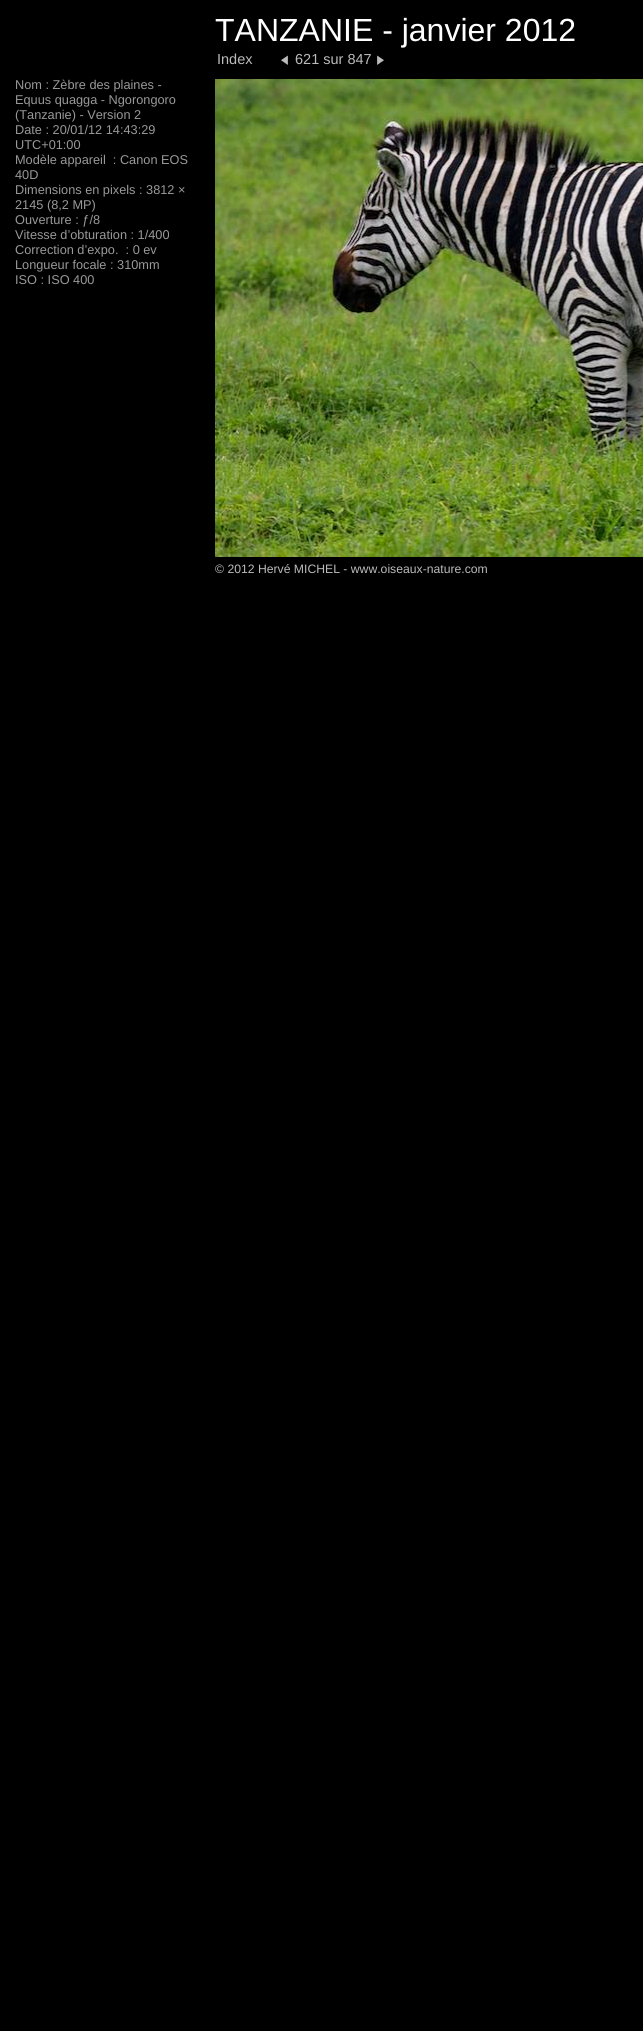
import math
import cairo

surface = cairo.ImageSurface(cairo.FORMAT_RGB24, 643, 2031)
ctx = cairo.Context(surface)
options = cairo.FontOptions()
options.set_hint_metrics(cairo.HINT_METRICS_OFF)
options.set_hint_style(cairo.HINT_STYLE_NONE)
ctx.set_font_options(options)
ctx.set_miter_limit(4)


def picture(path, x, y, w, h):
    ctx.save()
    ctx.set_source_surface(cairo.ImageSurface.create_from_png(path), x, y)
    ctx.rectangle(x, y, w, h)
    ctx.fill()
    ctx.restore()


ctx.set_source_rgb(0, 0, 0)
ctx.paint()
ctx.select_font_face("Liberation Sans")
ctx.set_font_size(32)
ctx.set_source_rgb(1, 1, 1)
ctx.move_to(215, 41)
ctx.show_text("TANZANIE - janvier 2012")
ctx.set_font_size(14.5)
ctx.set_source_rgb(0.733, 0.733, 0.733)
ctx.move_to(217, 64)
ctx.show_text("Index")
picture("img1.png", 281, 55, 7, 10)
ctx.move_to(295, 64)
ctx.show_text("621 sur 847")
picture("img2.png", 377, 55, 7, 10)
ctx.set_font_size(12.75)
ctx.set_source_rgb(0.6, 0.6, 0.6)
ctx.move_to(15, 89)
ctx.show_text("Nom : Zèbre des plaines -")
ctx.move_to(15, 104)
ctx.show_text("Equus quagga - Ngorongoro")
ctx.move_to(15, 119)
ctx.show_text("(Tanzanie) - Version 2")
ctx.move_to(15, 134)
ctx.show_text("Date : 20/01/12 14:43:29")
ctx.move_to(15, 149)
ctx.show_text("UTC+01:00")
ctx.move_to(15, 164)
ctx.show_text("Modèle appareil  : Canon EOS")
ctx.move_to(15, 179)
ctx.show_text("40D")
ctx.move_to(15, 194)
ctx.show_text("Dimensions en pixels : 3812 ×")
ctx.move_to(15, 209)
ctx.show_text("2145 (8,2 MP)")
ctx.move_to(15, 224)
ctx.show_text("Ouverture : ƒ/8")
ctx.move_to(15, 239)
ctx.show_text("Vitesse d’obturation : 1/400")
ctx.move_to(15, 254)
ctx.show_text("Correction d’expo.  : 0 ev")
ctx.move_to(15, 269)
ctx.show_text("Longueur focale : 310mm")
ctx.move_to(15, 284)
ctx.show_text("ISO : ISO 400")
picture("img3.png", 215, 79, 428, 478)
ctx.set_font_size(12.2)
ctx.set_source_rgb(0.733, 0.733, 0.733)
ctx.move_to(215, 573)
ctx.show_text("© 2012 Hervé MICHEL - www.oiseaux-nature.com")
surface.write_to_png("page.png")
